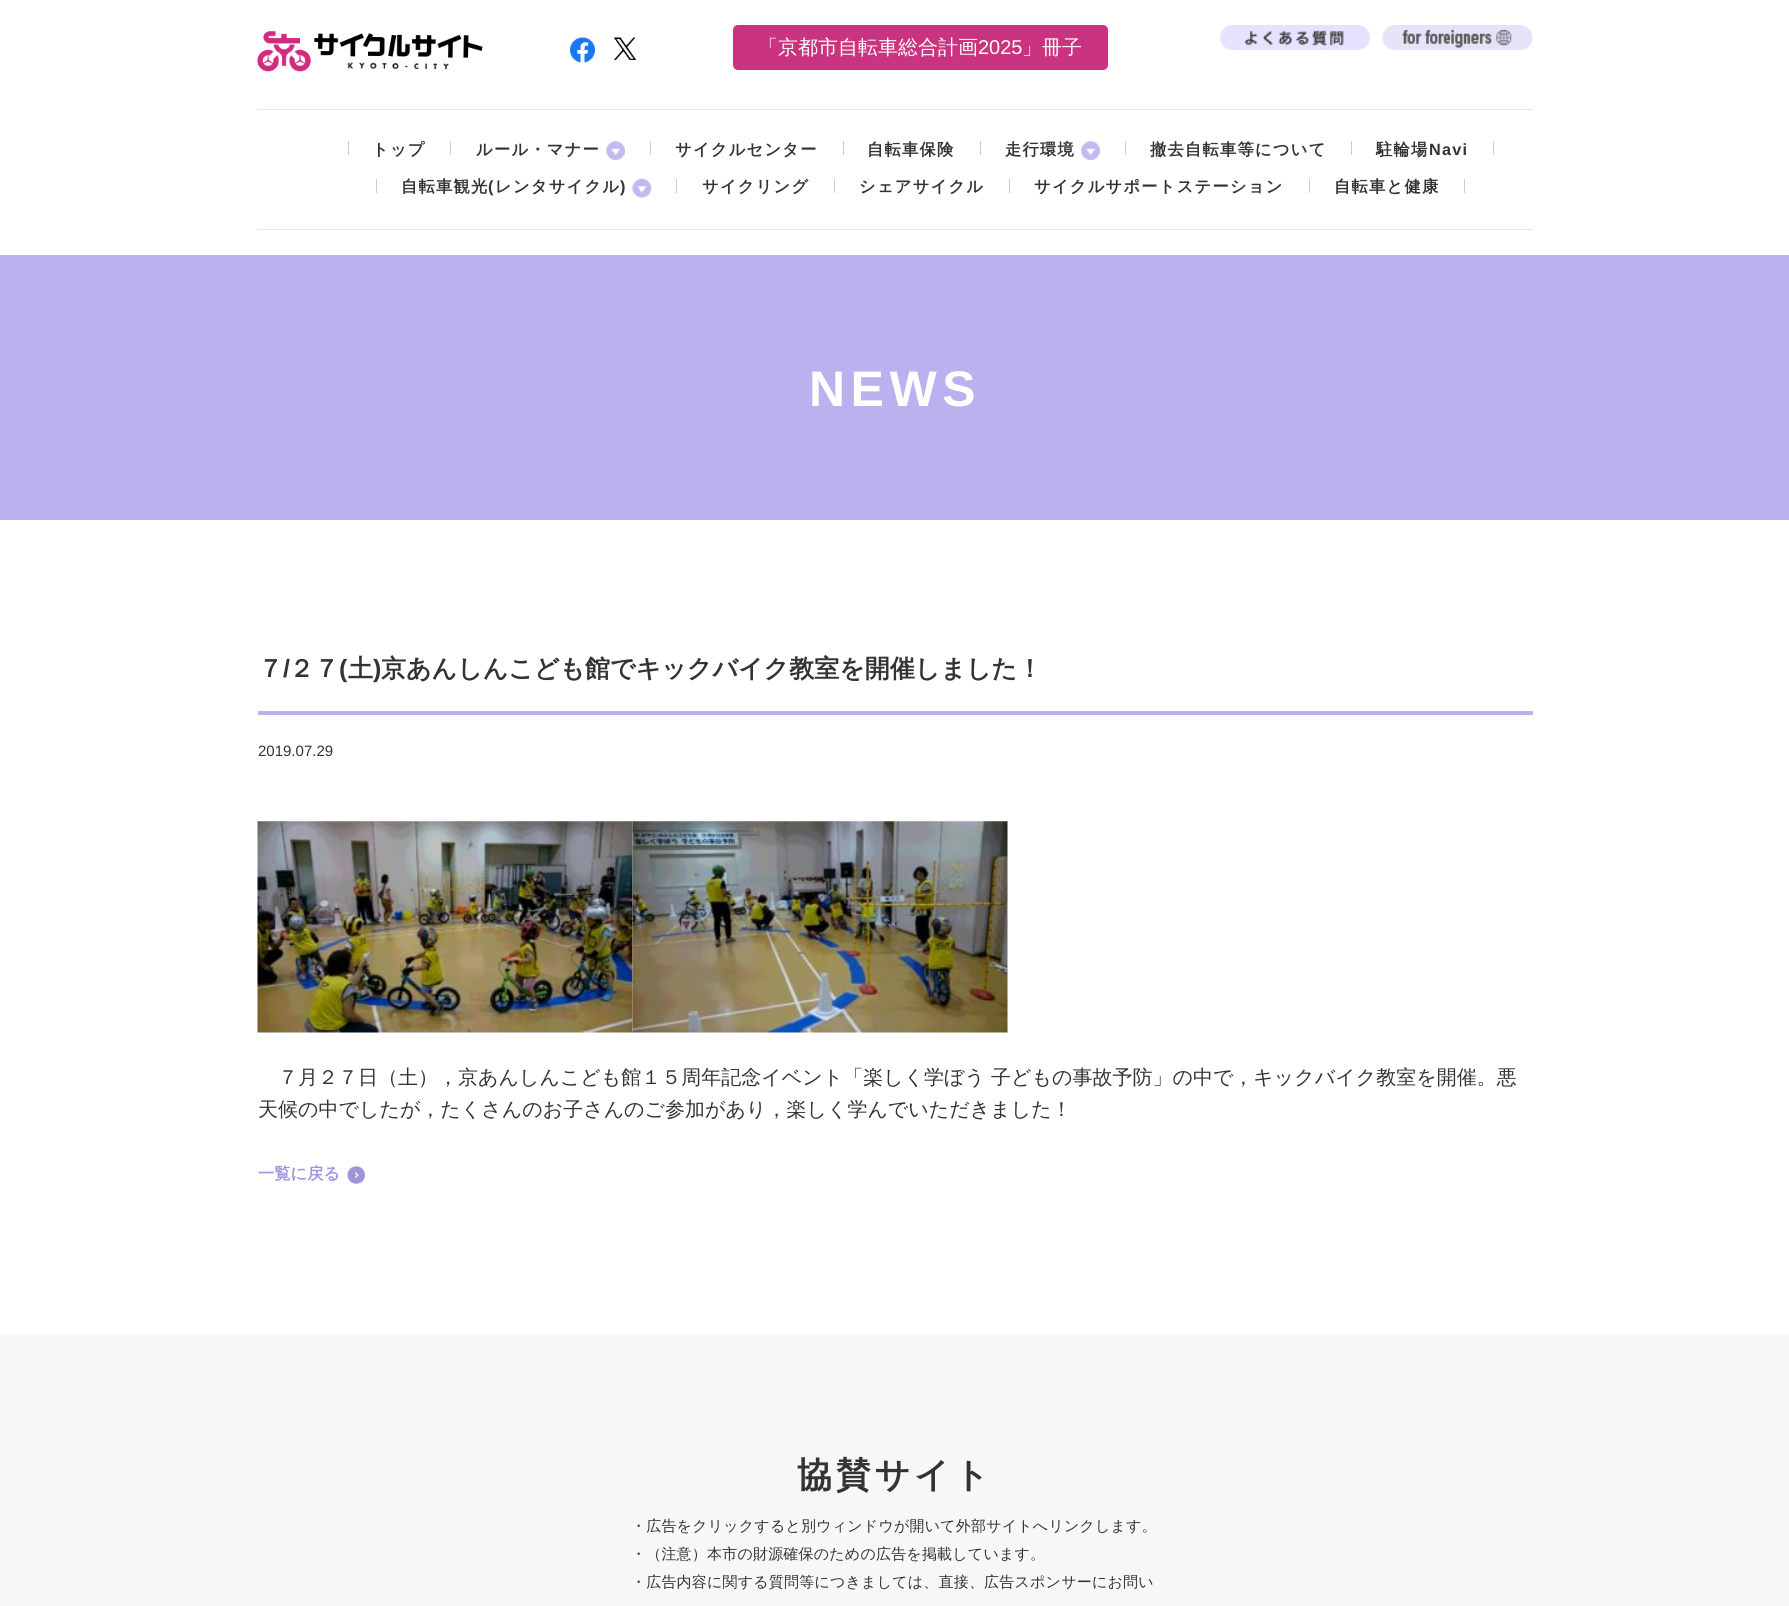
import math
import cairo

surface = cairo.ImageSurface(cairo.FORMAT_RGB24, 1789, 1606)
ctx = cairo.Context(surface)
options = cairo.FontOptions()
options.set_hint_metrics(cairo.HINT_METRICS_OFF)
options.set_hint_style(cairo.HINT_STYLE_NONE)
ctx.set_font_options(options)
ctx.set_miter_limit(4)


def spaced_text(x, y, s, letter, word):
    ctx.move_to(x, y)
    for ch in s:
        ctx.show_text(ch)
        ctx.rel_move_to(letter + word * (ch == ' '), 0)


def round_rect(x, y, w, h, r):
    ctx.new_sub_path()
    for i, (u, v) in enumerate([(x + w - r, y + h - r), (x + r, y + h - r), (x + r, y + r), (x + w - r, y + r)]):
        ctx.arc(u, v, r, i * math.pi / 2, (i + 1) * math.pi / 2)
    ctx.close_path()


def picture(path, x, y, w, h):
    ctx.save()
    ctx.set_source_surface(cairo.ImageSurface.create_from_png(path), x, y)
    ctx.rectangle(x, y, w, h)
    ctx.fill()
    ctx.restore()


ctx.set_source_rgb(1, 1, 1)
ctx.paint()
picture("img1.png", 257, 31, 226, 41)
picture("img2.png", 570, 37, 25, 26)
picture("img3.png", 613, 37, 24, 23)
picture("img4.png", 1220, 25, 150, 25)
picture("img5.png", 1382, 25, 151, 25)
ctx.set_source_rgb(0.792, 0.2, 0.502)
round_rect(733, 25, 375, 45, 5)
ctx.fill()
ctx.select_font_face("WenQuanYi Zen Hei Medium")
ctx.set_font_size(20)
ctx.set_source_rgb(1, 1, 1)
ctx.move_to(758, 54)
ctx.show_text("「京都市自転車総合計画")
ctx.select_font_face("Liberation Sans")
ctx.move_to(978, 54)
ctx.show_text("2025")
ctx.select_font_face("WenQuanYi Zen Hei Medium")
ctx.move_to(1022, 54)
ctx.show_text("」冊子")
ctx.set_source_rgb(0.898, 0.898, 0.898)
ctx.rectangle(258, 109, 1275, 1)
ctx.fill()
ctx.rectangle(258, 229, 1275, 1)
ctx.fill()
ctx.set_source_rgb(0.8, 0.8, 0.8)
ctx.rectangle(348, 141, 1, 14)
ctx.fill()
ctx.select_font_face("WenQuanYi Zen Hei", cairo.FONT_SLANT_NORMAL, cairo.FONT_WEIGHT_BOLD)
ctx.set_font_size(16.25)
ctx.set_source_rgb(0.2, 0.2, 0.2)
spaced_text(372, 155, "トップ", 1.25, 0)
ctx.set_source_rgb(0.8, 0.8, 0.8)
ctx.rectangle(450, 141, 1, 14)
ctx.fill()
picture("img6.png", 606, 141, 19, 19)
ctx.set_source_rgb(0.2, 0.2, 0.2)
spaced_text(476, 155, "ルール・マナー", 1.25, 0)
ctx.set_source_rgb(0.8, 0.8, 0.8)
ctx.rectangle(650, 141, 1, 14)
ctx.fill()
ctx.set_source_rgb(0.2, 0.2, 0.2)
spaced_text(675, 155, "サイクルセンター", 1.25, 0)
ctx.set_source_rgb(0.8, 0.8, 0.8)
ctx.rectangle(843, 141, 1, 14)
ctx.fill()
ctx.set_source_rgb(0.2, 0.2, 0.2)
spaced_text(867, 155, "自転車保険", 1.25, 0)
ctx.set_source_rgb(0.8, 0.8, 0.8)
ctx.rectangle(980, 141, 1, 14)
ctx.fill()
picture("img6.png", 1081, 141, 19, 19)
ctx.set_source_rgb(0.2, 0.2, 0.2)
spaced_text(1005, 155, "走行環境", 1.25, 0)
ctx.set_source_rgb(0.8, 0.8, 0.8)
ctx.rectangle(1125, 141, 1, 14)
ctx.fill()
ctx.set_source_rgb(0.2, 0.2, 0.2)
spaced_text(1150, 155, "撤去自転車等について", 1.25, 0)
ctx.set_source_rgb(0.8, 0.8, 0.8)
ctx.rectangle(1351, 141, 1, 14)
ctx.fill()
ctx.set_source_rgb(0.2, 0.2, 0.2)
spaced_text(1376, 155, "駐輪場", 1.25, 0)
ctx.select_font_face("Liberation Sans", cairo.FONT_SLANT_NORMAL, cairo.FONT_WEIGHT_BOLD)
spaced_text(1429, 155, "Navi", 1.25, 0)
ctx.set_source_rgb(0.8, 0.8, 0.8)
ctx.rectangle(1493, 141, 1, 14)
ctx.fill()
ctx.rectangle(376, 179, 1, 14)
ctx.fill()
picture("img7.png", 632, 178, 20, 20)
ctx.select_font_face("WenQuanYi Zen Hei", cairo.FONT_SLANT_NORMAL, cairo.FONT_WEIGHT_BOLD)
ctx.set_source_rgb(0.2, 0.2, 0.2)
spaced_text(401, 192, "自転車観光", 1.25, 0)
ctx.select_font_face("Liberation Sans", cairo.FONT_SLANT_NORMAL, cairo.FONT_WEIGHT_BOLD)
spaced_text(488, 192, "(", 1.25, 0)
ctx.select_font_face("WenQuanYi Zen Hei", cairo.FONT_SLANT_NORMAL, cairo.FONT_WEIGHT_BOLD)
spaced_text(495, 192, "レンタサイクル", 1.25, 0)
ctx.select_font_face("Liberation Sans", cairo.FONT_SLANT_NORMAL, cairo.FONT_WEIGHT_BOLD)
spaced_text(620, 192, ")", 1.25, 0)
ctx.set_source_rgb(0.8, 0.8, 0.8)
ctx.rectangle(676, 179, 1, 14)
ctx.fill()
ctx.select_font_face("WenQuanYi Zen Hei", cairo.FONT_SLANT_NORMAL, cairo.FONT_WEIGHT_BOLD)
ctx.set_source_rgb(0.2, 0.2, 0.2)
spaced_text(702, 192, "サイクリング", 1.25, 0)
ctx.set_source_rgb(0.8, 0.8, 0.8)
ctx.rectangle(834, 179, 1, 14)
ctx.fill()
ctx.set_source_rgb(0.2, 0.2, 0.2)
spaced_text(859, 192, "シェアサイクル", 1.25, 0)
ctx.set_source_rgb(0.8, 0.8, 0.8)
ctx.rectangle(1009, 179, 1, 14)
ctx.fill()
ctx.set_source_rgb(0.2, 0.2, 0.2)
spaced_text(1034, 192, "サイクルサポートステーション", 1.25, 0)
ctx.set_source_rgb(0.8, 0.8, 0.8)
ctx.rectangle(1309, 179, 1, 14)
ctx.fill()
ctx.set_source_rgb(0.2, 0.2, 0.2)
spaced_text(1334, 192, "自転車と健康", 1.25, 0)
ctx.set_source_rgb(0.8, 0.8, 0.8)
ctx.rectangle(1464, 179, 1, 14)
ctx.fill()
ctx.set_source_rgb(0.725, 0.698, 0.933)
ctx.rectangle(0, 255, 1789, 265)
ctx.fill()
ctx.select_font_face("Liberation Sans", cairo.FONT_SLANT_NORMAL, cairo.FONT_WEIGHT_BOLD)
ctx.set_font_size(50)
ctx.set_source_rgb(1, 1, 1)
spaced_text(809, 406, "NEWS", 5.5, 0)
ctx.set_source_rgb(0.725, 0.698, 0.933)
ctx.rectangle(258, 711, 1275, 4)
ctx.fill()
ctx.select_font_face("WenQuanYi Zen Hei", cairo.FONT_SLANT_NORMAL, cairo.FONT_WEIGHT_BOLD)
ctx.set_font_size(25)
ctx.set_source_rgb(0.2, 0.2, 0.2)
ctx.move_to(258, 677)
ctx.show_text("７")
ctx.select_font_face("Liberation Sans", cairo.FONT_SLANT_NORMAL, cairo.FONT_WEIGHT_BOLD)
ctx.move_to(283, 677)
ctx.show_text("/")
ctx.select_font_face("WenQuanYi Zen Hei", cairo.FONT_SLANT_NORMAL, cairo.FONT_WEIGHT_BOLD)
ctx.move_to(289, 677)
ctx.show_text("２７")
ctx.select_font_face("Liberation Sans", cairo.FONT_SLANT_NORMAL, cairo.FONT_WEIGHT_BOLD)
ctx.move_to(339, 677)
ctx.show_text("(")
ctx.select_font_face("WenQuanYi Zen Hei", cairo.FONT_SLANT_NORMAL, cairo.FONT_WEIGHT_BOLD)
ctx.move_to(348, 677)
ctx.show_text("土")
ctx.select_font_face("Liberation Sans", cairo.FONT_SLANT_NORMAL, cairo.FONT_WEIGHT_BOLD)
ctx.move_to(373, 677)
ctx.show_text(")")
ctx.select_font_face("WenQuanYi Zen Hei", cairo.FONT_SLANT_NORMAL, cairo.FONT_WEIGHT_BOLD)
ctx.move_to(381, 677)
ctx.show_text("京あんしんこども館でキックバイク教室を開催しました！")
ctx.select_font_face("Liberation Sans")
ctx.set_font_size(15)
ctx.move_to(258, 756)
ctx.show_text("2019.07.29")
picture("img8.png", 257, 821, 376, 212)
picture("img9.png", 632, 821, 376, 212)
ctx.select_font_face("WenQuanYi Zen Hei Medium")
ctx.set_font_size(20)
ctx.move_to(278, 1084)
ctx.show_text("７月２７日（土），京あんしんこども館１５周年記念イベント「楽しく学ぼう 子どもの事故予防」の中で，キックバイク教室を開催。悪")
ctx.move_to(258, 1116)
ctx.show_text("天候の中でしたが，たくさんのお子さんのご参加があり，楽しく学んでいただきました！")
picture("img10.png", 347, 1166, 18, 18)
ctx.select_font_face("WenQuanYi Zen Hei", cairo.FONT_SLANT_NORMAL, cairo.FONT_WEIGHT_BOLD)
ctx.set_font_size(16.25)
ctx.set_source_rgb(0.62, 0.588, 0.855)
ctx.move_to(258, 1179)
ctx.show_text("一覧に戻る")
ctx.set_source_rgb(0.965, 0.965, 0.965)
ctx.rectangle(0, 1334, 1789, 272)
ctx.fill()
ctx.set_font_size(35)
ctx.set_source_rgb(0.2, 0.2, 0.2)
spaced_text(797, 1487, "協賛サイト", 3.75, 0)
ctx.select_font_face("WenQuanYi Zen Hei Medium")
ctx.set_font_size(15)
spaced_text(631, 1531, "・広告をクリックすると別ウィンドウが開いて外部サイトへリンクします。", 0.2, 0)
spaced_text(631, 1559, "・（注意）本市の財源確保のための広告を掲載しています。", 0.2, 0)
spaced_text(631, 1587, "・広告内容に関する質問等につきましては、直接、広告スポンサーにお問い", 0.2, 0)
surface.write_to_png("page.png")
